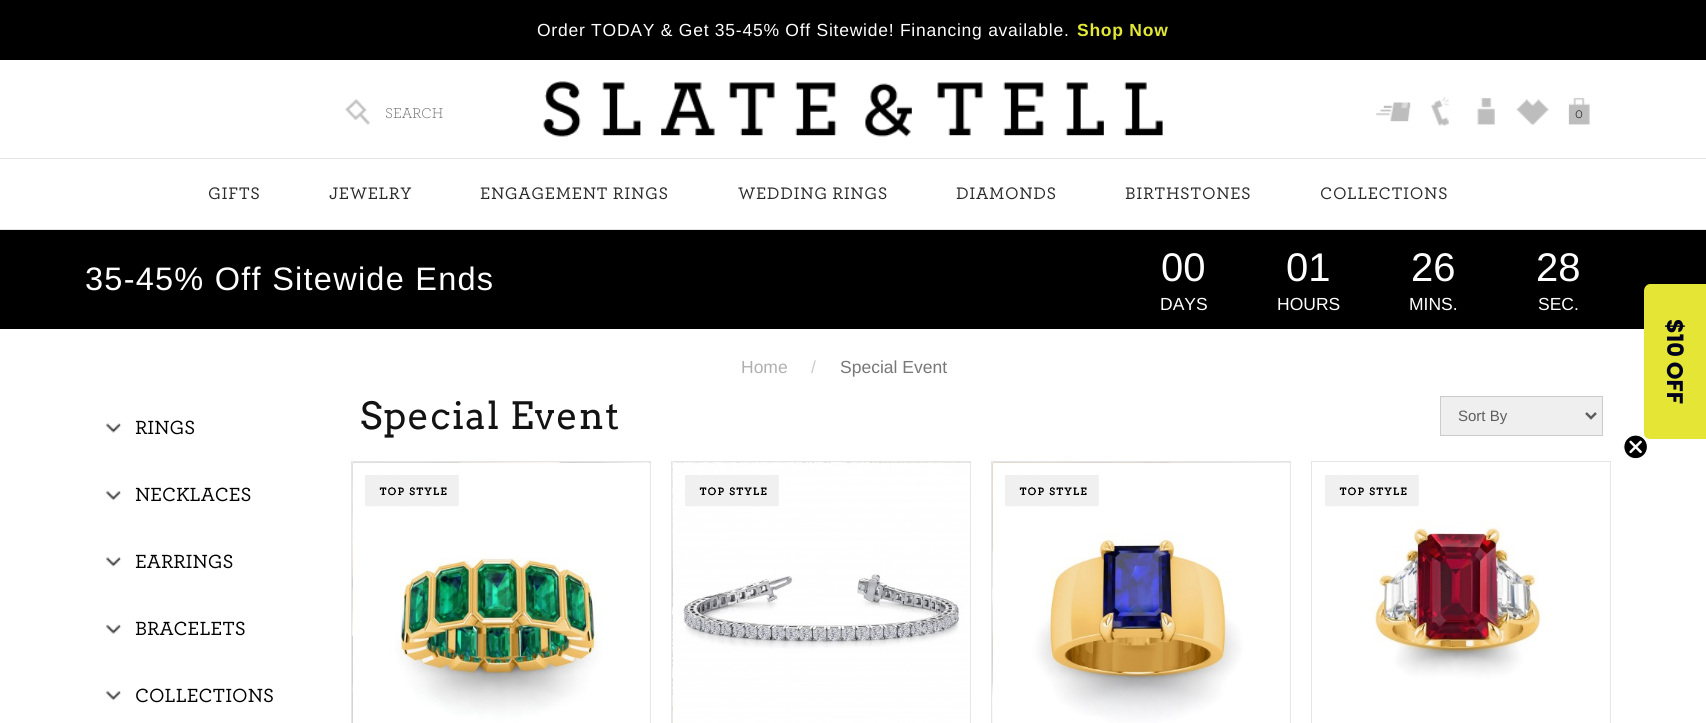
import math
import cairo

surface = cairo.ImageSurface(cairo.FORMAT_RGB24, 1706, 723)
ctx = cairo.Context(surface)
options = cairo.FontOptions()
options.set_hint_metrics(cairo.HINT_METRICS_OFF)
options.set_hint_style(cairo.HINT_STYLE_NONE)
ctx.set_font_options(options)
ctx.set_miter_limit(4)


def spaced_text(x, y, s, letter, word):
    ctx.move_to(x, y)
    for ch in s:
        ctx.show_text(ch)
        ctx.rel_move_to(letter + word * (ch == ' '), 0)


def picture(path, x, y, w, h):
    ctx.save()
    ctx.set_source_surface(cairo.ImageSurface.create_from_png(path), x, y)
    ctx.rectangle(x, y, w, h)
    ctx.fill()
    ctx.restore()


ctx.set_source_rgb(1, 1, 1)
ctx.paint()
ctx.set_source_rgb(0.898, 0.898, 0.898)
ctx.rectangle(0, 158, 1706, 1)
ctx.fill()
ctx.set_source_rgb(0, 0, 0)
ctx.rectangle(0, 0, 1706, 60)
ctx.fill()
ctx.select_font_face("Liberation Sans")
ctx.set_font_size(17.5)
ctx.set_source_rgb(1, 1, 1)
spaced_text(537, 36, "Order TODAY & Get 35-45% Off Sitewide! Financing available.", 0.75, 0)
ctx.select_font_face("Liberation Sans", cairo.FONT_SLANT_NORMAL, cairo.FONT_WEIGHT_BOLD)
ctx.set_source_rgb(0.89, 0.91, 0.212)
spaced_text(1077, 36, "Shop Now", 0.75, 0)
picture("img1.png", 345, 99, 25, 26)
ctx.select_font_face("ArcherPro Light")
ctx.set_font_size(15)
ctx.set_source_rgb(0.369, 0.369, 0.369)
ctx.move_to(385, 118)
ctx.show_text("SEARCH")
picture("img2.png", 543, 81, 620, 56)
picture("img3.png", 1376, 102, 35, 20)
picture("img4.png", 1431, 97, 18, 29)
picture("img5.png", 1477, 98, 18, 27)
picture("img6.png", 1516, 99, 33, 26)
picture("img7.png", 1568, 98, 22, 27)
ctx.set_source_rgb(0, 0, 0)
ctx.move_to(1575, 118)
ctx.show_text("0")
ctx.set_source_rgb(0.898, 0.898, 0.898)
ctx.rectangle(0, 229, 1706, 1)
ctx.fill()
ctx.select_font_face("ArcherPro Medium")
ctx.set_font_size(17.5)
ctx.set_source_rgb(0.161, 0.161, 0.161)
spaced_text(208, 199, "GIFTS", 0.6, 0)
spaced_text(329, 199, "JEWELRY", 0.6, 0)
spaced_text(480, 199, "ENGAGEMENT RINGS", 0.6, 0)
spaced_text(738, 199, "WEDDING RINGS", 0.6, 0)
spaced_text(956, 199, "DIAMONDS", 0.6, 0)
spaced_text(1125, 199, "BIRTHSTONES", 0.6, 0)
spaced_text(1320, 199, "COLLECTIONS", 0.6, 0)
ctx.set_source_rgb(0, 0, 0)
ctx.rectangle(0, 230, 1706, 99)
ctx.fill()
ctx.select_font_face("Liberation Sans")
ctx.set_font_size(32.5)
ctx.set_source_rgb(1, 1, 1)
spaced_text(85, 290, "35-45% Off Sitewide Ends", 1.25, 0)
ctx.set_font_size(40)
ctx.move_to(1161, 281)
ctx.show_text("00")
ctx.set_font_size(17.5)
ctx.move_to(1160, 310)
ctx.show_text("DAYS")
ctx.set_font_size(40)
ctx.move_to(1286, 281)
ctx.show_text("01")
ctx.set_font_size(17.5)
ctx.move_to(1277, 310)
ctx.show_text("HOURS")
ctx.set_font_size(40)
ctx.move_to(1411, 281)
ctx.show_text("26")
ctx.set_font_size(17.5)
ctx.move_to(1409, 310)
ctx.show_text("MINS.")
ctx.set_font_size(40)
ctx.move_to(1536, 281)
ctx.show_text("28")
ctx.set_font_size(17.5)
ctx.move_to(1538, 310)
ctx.show_text("SEC.")
ctx.set_source_rgb(0.69, 0.69, 0.69)
ctx.move_to(741, 373)
ctx.show_text("Home")
ctx.set_source_rgb(0.8, 0.8, 0.8)
ctx.move_to(811, 373)
ctx.show_text("/")
ctx.set_source_rgb(0.467, 0.467, 0.467)
ctx.move_to(840, 373)
ctx.show_text("Special Event")
picture("img8.png", 106, 423, 16, 10)
ctx.select_font_face("ArcherPro Medium")
ctx.set_font_size(20)
ctx.set_source_rgb(0, 0, 0)
ctx.move_to(135, 434)
ctx.show_text("RINGS")
picture("img9.png", 106, 491, 15, 10)
ctx.move_to(135, 501)
ctx.show_text("NECKLACES")
picture("img10.png", 106, 557, 16, 10)
ctx.move_to(135, 568)
ctx.show_text("EARRINGS")
picture("img11.png", 106, 624, 16, 10)
ctx.move_to(135, 635)
ctx.show_text("BRACELETS")
picture("img9.png", 106, 691, 15, 10)
ctx.move_to(135, 702)
ctx.show_text("COLLECTIONS")
ctx.select_font_face("Arvo")
ctx.set_font_size(37.5)
ctx.set_source_rgb(0.075, 0.075, 0.075)
spaced_text(360, 429, "Special Event", 1.25, 0)
ctx.set_source_rgb(0.937, 0.937, 0.937)
ctx.rectangle(1440.5, 396.5, 162, 39)
ctx.fill_preserve()
ctx.set_source_rgb(0.796, 0.796, 0.796)
ctx.set_line_width(1)
ctx.stroke()
ctx.new_path()
ctx.move_to(1586, 413)
ctx.line_to(1591, 418)
ctx.line_to(1596, 413)
ctx.set_source_rgb(0.369, 0.369, 0.369)
ctx.set_line_width(2.5)
ctx.stroke()
ctx.select_font_face("Liberation Sans")
ctx.set_font_size(15)
ctx.move_to(1458, 421)
ctx.show_text("Sort By")
ctx.rectangle(351.5, 461.5, 299, 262)
ctx.set_source_rgb(0.898, 0.898, 0.898)
ctx.set_line_width(1)
ctx.stroke()
picture("img12.png", 352, 462, 298, 261)
picture("img13.png", 352, 462, 298, 261)
picture("img14.png", 365, 475, 94, 32)
ctx.rectangle(671.5, 461.5, 299, 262)
ctx.stroke()
picture("img15.png", 672, 462, 298, 261)
picture("img16.png", 672, 462, 298, 261)
picture("img14.png", 685, 475, 94, 32)
ctx.rectangle(991.5, 461.5, 299, 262)
ctx.stroke()
picture("img17.png", 992, 462, 298, 261)
picture("img18.png", 992, 462, 298, 261)
picture("img19.png", 1005, 475, 94, 32)
ctx.rectangle(1311.5, 461.5, 299, 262)
ctx.stroke()
picture("img20.png", 1372, 498, 176, 204)
picture("img19.png", 1325, 475, 94, 32)
ctx.set_source_rgb(0.894, 0.898, 0.208)
ctx.new_path()
ctx.move_to(1706, 284)
ctx.line_to(1706, 439)
ctx.line_to(1650, 439)
ctx.curve_to(1647, 439, 1644, 437, 1644, 433)
ctx.line_to(1644, 291)
ctx.curve_to(1644, 287, 1647, 284, 1650, 284)
ctx.close_path()
ctx.fill()
ctx.select_font_face("Poppins", cairo.FONT_SLANT_NORMAL, cairo.FONT_WEIGHT_BOLD)
ctx.set_font_size(22.5)
ctx.set_source_rgb(0, 0, 0.118)
ctx.save()
ctx.translate(1667, 319)
ctx.rotate(90 * math.pi / 180)
ctx.move_to(0, 0)
ctx.show_text("$10 OFF")
ctx.restore()
picture("img21.png", 1623, 435, 25, 24)
surface.write_to_png("page.png")
